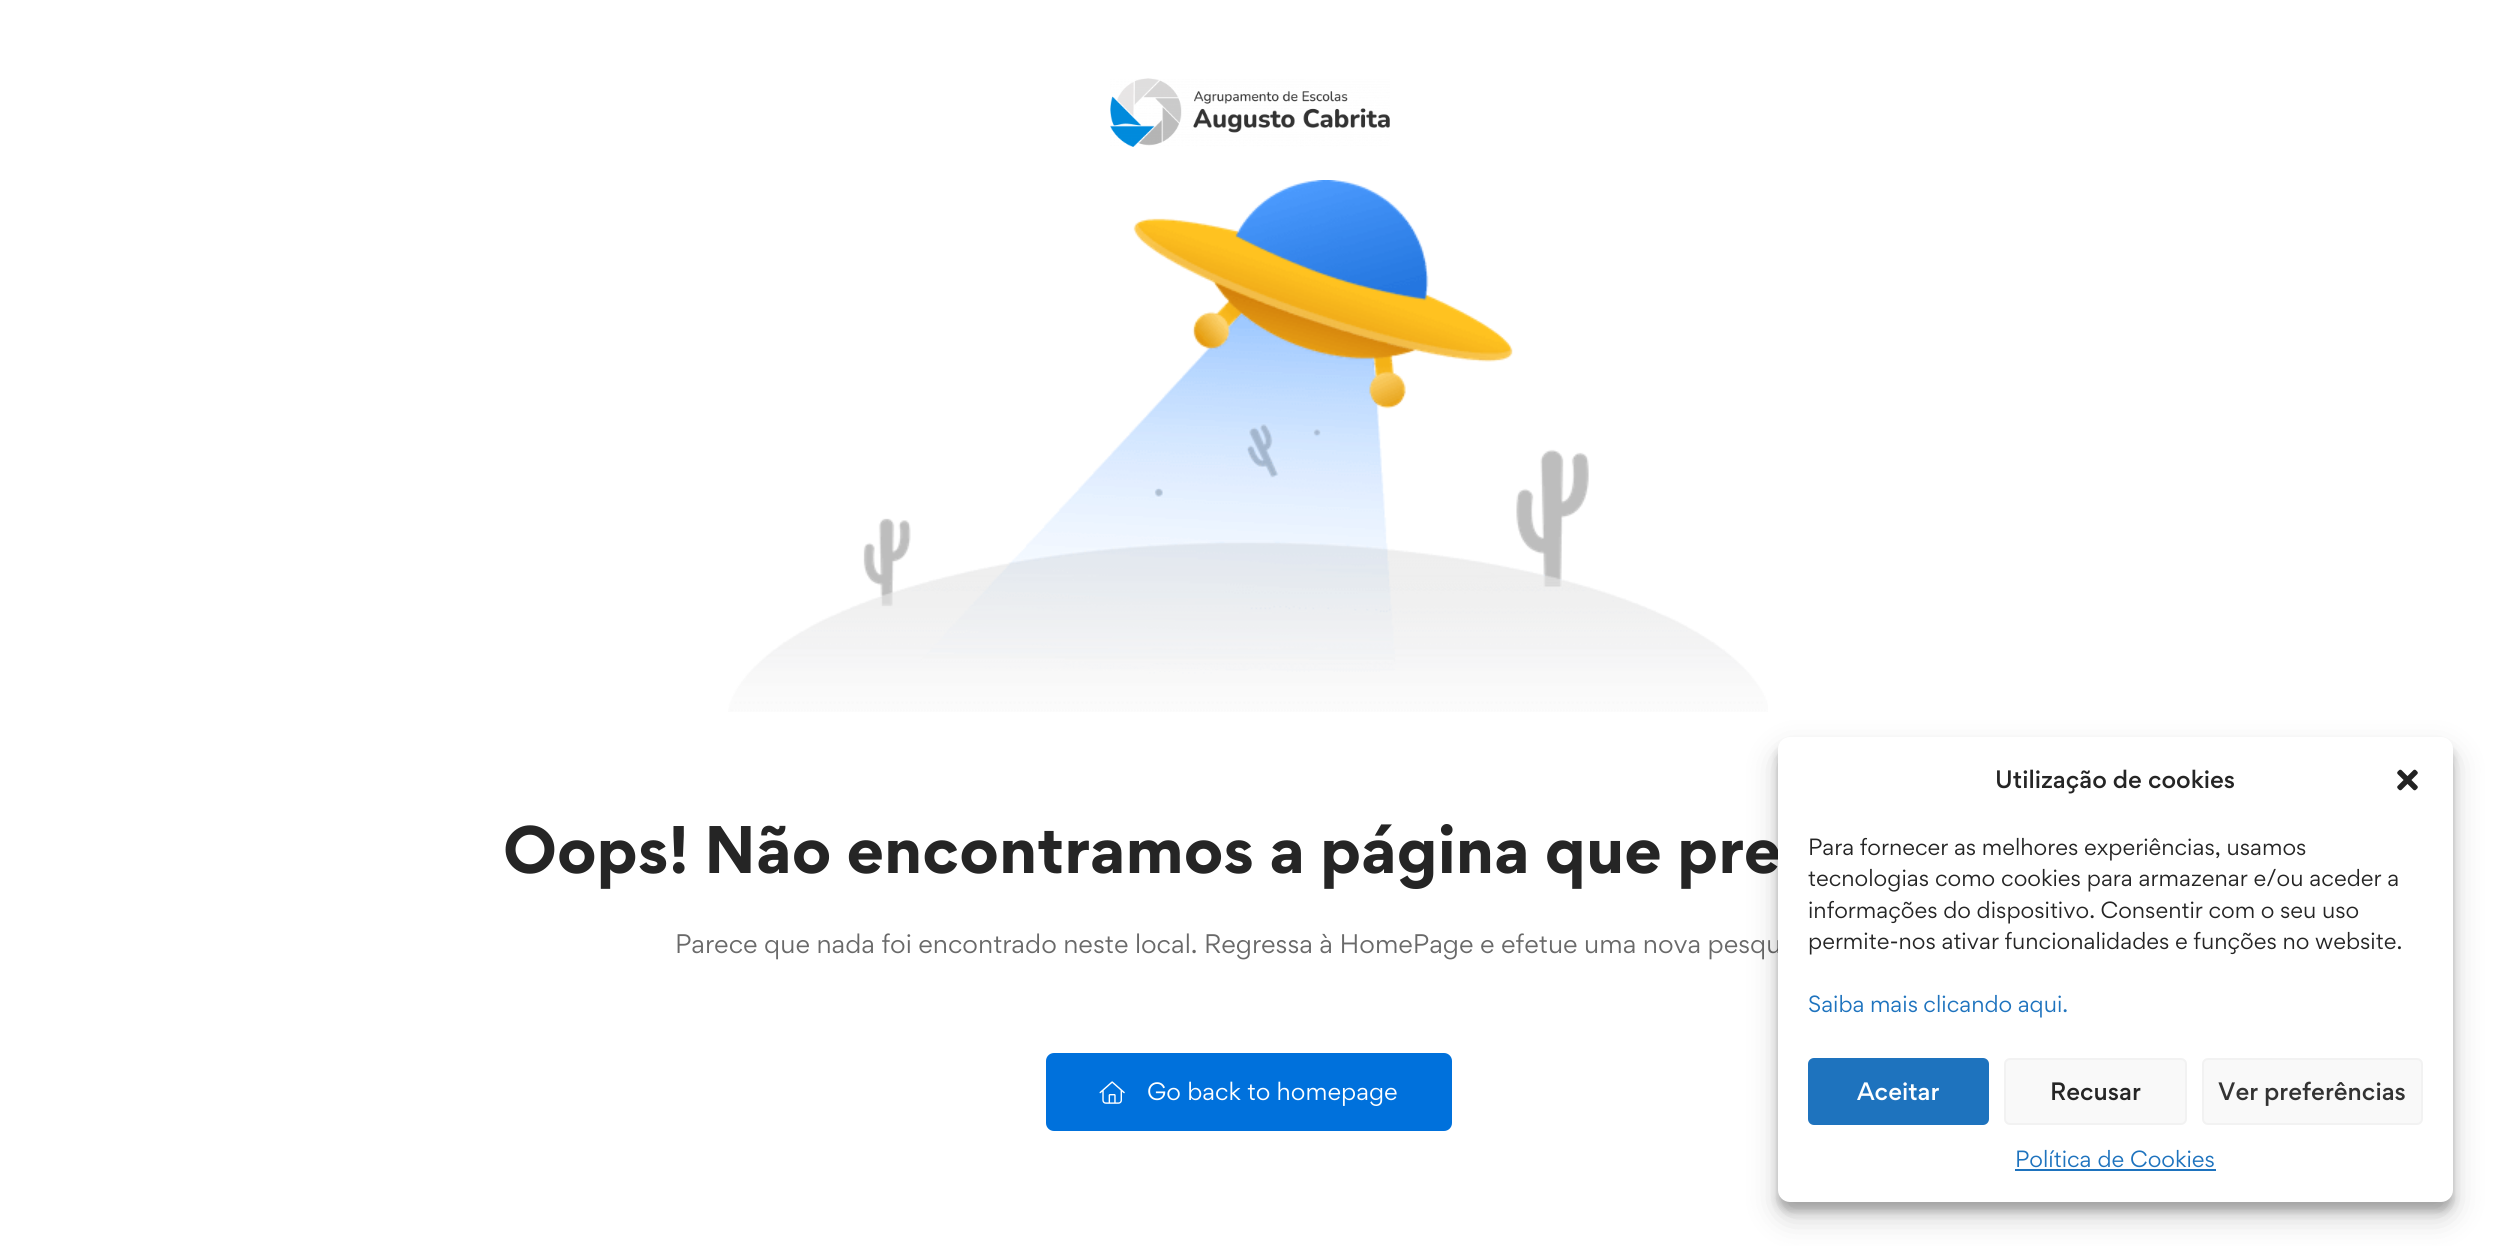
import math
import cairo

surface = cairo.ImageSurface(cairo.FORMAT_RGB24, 2497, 1246)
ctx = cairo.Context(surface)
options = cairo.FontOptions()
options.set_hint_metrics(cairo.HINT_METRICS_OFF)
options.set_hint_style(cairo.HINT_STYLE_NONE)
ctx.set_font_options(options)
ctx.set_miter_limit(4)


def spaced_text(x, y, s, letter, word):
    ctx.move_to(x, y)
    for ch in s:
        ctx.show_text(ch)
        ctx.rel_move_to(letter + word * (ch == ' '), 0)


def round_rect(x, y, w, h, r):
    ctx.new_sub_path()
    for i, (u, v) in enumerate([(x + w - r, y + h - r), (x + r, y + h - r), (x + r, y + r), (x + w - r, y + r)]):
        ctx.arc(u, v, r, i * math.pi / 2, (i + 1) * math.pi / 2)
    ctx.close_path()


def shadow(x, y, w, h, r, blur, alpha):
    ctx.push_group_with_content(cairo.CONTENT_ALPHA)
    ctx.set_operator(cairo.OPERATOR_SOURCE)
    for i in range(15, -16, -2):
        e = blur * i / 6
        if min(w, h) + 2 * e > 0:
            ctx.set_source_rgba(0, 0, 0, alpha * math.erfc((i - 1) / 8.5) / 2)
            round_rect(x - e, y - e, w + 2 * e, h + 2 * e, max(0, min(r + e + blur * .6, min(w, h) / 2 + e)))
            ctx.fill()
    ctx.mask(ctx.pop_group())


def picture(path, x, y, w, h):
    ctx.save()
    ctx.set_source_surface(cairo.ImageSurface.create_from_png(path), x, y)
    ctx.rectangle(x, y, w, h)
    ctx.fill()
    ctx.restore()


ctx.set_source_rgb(1, 1, 1)
ctx.paint()
picture("img1.png", 1110, 78, 280, 69)
picture("img2.png", 728, 180, 1040, 532)
ctx.select_font_face("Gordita", cairo.FONT_SLANT_NORMAL, cairo.FONT_WEIGHT_BOLD)
ctx.set_font_size(60)
ctx.set_source_rgb(0.145, 0.145, 0.145)
ctx.move_to(503, 873)
ctx.show_text("Oops! Não encontramos a página que pre")
ctx.select_font_face("Gordita")
ctx.set_font_size(24)
ctx.set_source_rgb(0.412, 0.412, 0.412)
spaced_text(675, 953, "Parece que nada foi encontrado neste local. Regressa à HomePage e efetue uma nova pesqu", 0, -0.25)
ctx.set_source_rgb(0, 0.443, 0.863)
round_rect(1046, 1053, 406, 78, 8)
ctx.fill()
picture("img3.png", 1099, 1081, 26, 23)
ctx.set_font_size(22.5)
ctx.set_source_rgb(1, 1, 1)
ctx.move_to(1147, 1100)
ctx.show_text("Go back to homepage")
ctx.set_source_rgb(0, 0, 0)
shadow(1778, 746, 675, 465, 12, 4.5, 0.23)
shadow(1778, 752, 675, 465, 12, 15, 0.19)
ctx.set_source_rgb(1, 1, 1)
round_rect(1778, 737, 675, 465, 12)
ctx.fill()
ctx.select_font_face("Gordita Medium")
ctx.set_source_rgb(0.145, 0.145, 0.145)
ctx.move_to(1995, 788)
ctx.show_text("Utilização de cookies")
picture("img4.png", 2397, 769, 21, 22)
ctx.select_font_face("Gordita")
ctx.set_font_size(21)
spaced_text(1808, 855, "Para fornecer as melhores experiências, usamos", 0, -0.25)
ctx.move_to(1808, 886)
ctx.show_text("tecnologias como cookies para armazenar e/ou aceder a")
spaced_text(1808, 918, "informações do dispositivo. Consentir com o seu uso", 0, -0.25)
spaced_text(1808, 949, "permite-nos ativar funcionalidades e funções no website.", 0, -0.25)
ctx.set_source_rgb(0.118, 0.451, 0.745)
spaced_text(1808, 1012, "Saiba mais clicando aqui.", 0, -0.5)
round_rect(1809, 1059, 179, 65, 5)
ctx.fill_preserve()
ctx.stroke()
ctx.select_font_face("Gordita Medium")
ctx.set_font_size(22.5)
ctx.set_source_rgb(1, 1, 1)
ctx.move_to(1857, 1100)
ctx.show_text("Aceitar")
ctx.set_source_rgb(0.976, 0.976, 0.976)
round_rect(2005, 1059, 181, 65, 5)
ctx.fill_preserve()
ctx.set_source_rgb(0.949, 0.949, 0.949)
ctx.stroke()
ctx.set_source_rgb(0.145, 0.145, 0.145)
ctx.move_to(2050, 1100)
ctx.show_text("Recusar")
ctx.set_source_rgb(0.976, 0.976, 0.976)
round_rect(2203, 1059, 219, 65, 5)
ctx.fill_preserve()
ctx.set_source_rgb(0.949, 0.949, 0.949)
ctx.stroke()
ctx.set_source_rgb(0.2, 0.2, 0.2)
ctx.move_to(2218, 1100)
ctx.show_text("Ver preferências")
ctx.select_font_face("Gordita")
ctx.set_font_size(21)
ctx.set_source_rgb(0.118, 0.451, 0.745)
ctx.move_to(2015, 1167)
ctx.show_text("Política de Cookies")
ctx.rectangle(2015, 1169, 201, 2)
ctx.fill()
surface.write_to_png("page.png")
